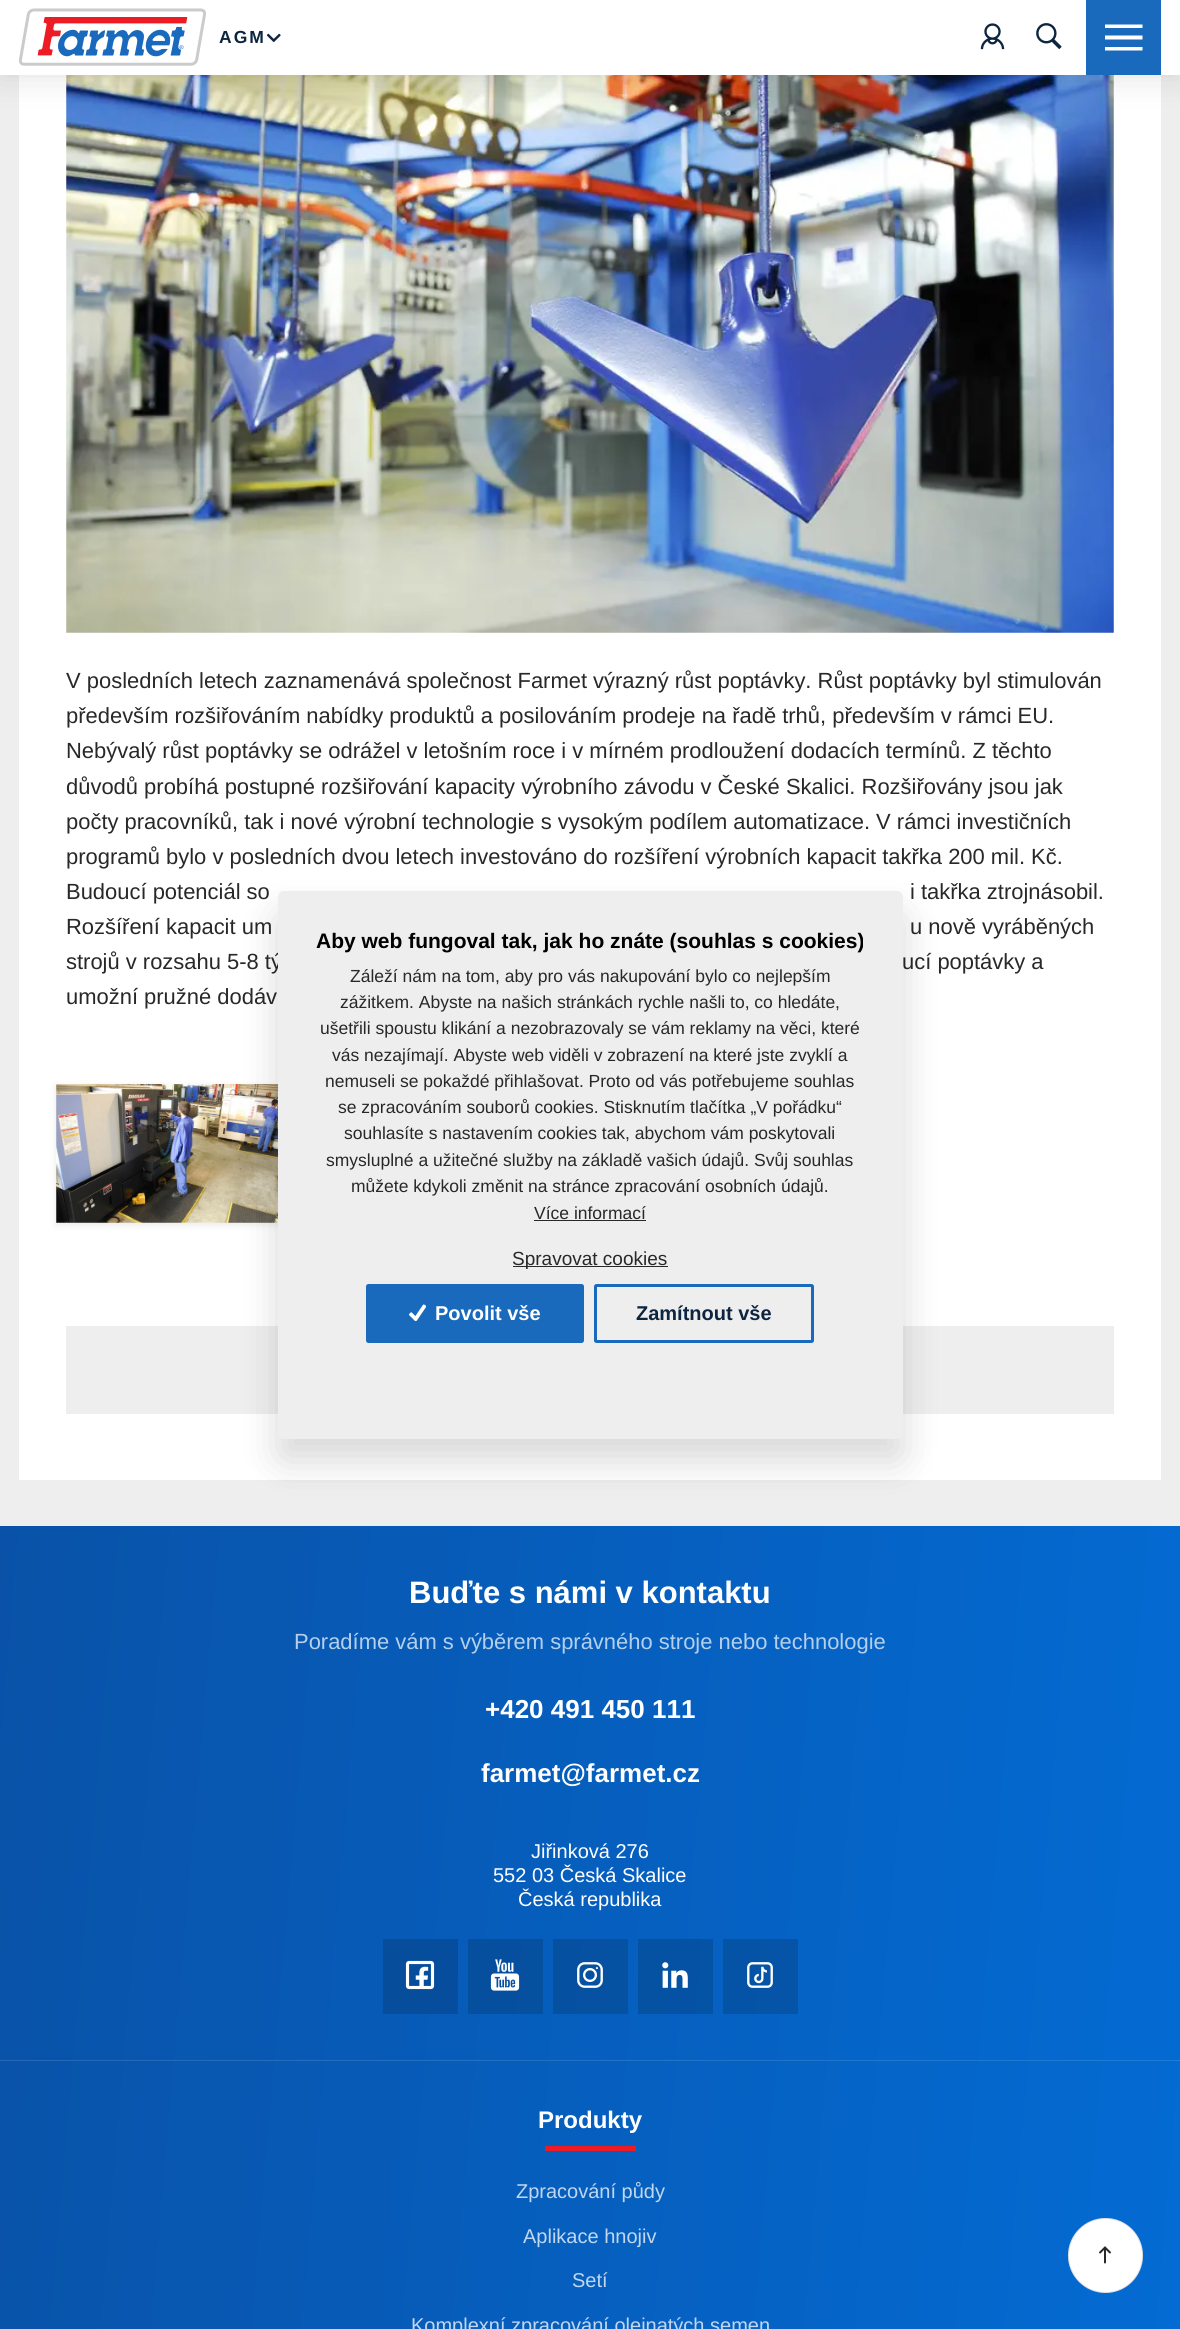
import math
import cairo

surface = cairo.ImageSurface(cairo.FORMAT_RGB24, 1180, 2329)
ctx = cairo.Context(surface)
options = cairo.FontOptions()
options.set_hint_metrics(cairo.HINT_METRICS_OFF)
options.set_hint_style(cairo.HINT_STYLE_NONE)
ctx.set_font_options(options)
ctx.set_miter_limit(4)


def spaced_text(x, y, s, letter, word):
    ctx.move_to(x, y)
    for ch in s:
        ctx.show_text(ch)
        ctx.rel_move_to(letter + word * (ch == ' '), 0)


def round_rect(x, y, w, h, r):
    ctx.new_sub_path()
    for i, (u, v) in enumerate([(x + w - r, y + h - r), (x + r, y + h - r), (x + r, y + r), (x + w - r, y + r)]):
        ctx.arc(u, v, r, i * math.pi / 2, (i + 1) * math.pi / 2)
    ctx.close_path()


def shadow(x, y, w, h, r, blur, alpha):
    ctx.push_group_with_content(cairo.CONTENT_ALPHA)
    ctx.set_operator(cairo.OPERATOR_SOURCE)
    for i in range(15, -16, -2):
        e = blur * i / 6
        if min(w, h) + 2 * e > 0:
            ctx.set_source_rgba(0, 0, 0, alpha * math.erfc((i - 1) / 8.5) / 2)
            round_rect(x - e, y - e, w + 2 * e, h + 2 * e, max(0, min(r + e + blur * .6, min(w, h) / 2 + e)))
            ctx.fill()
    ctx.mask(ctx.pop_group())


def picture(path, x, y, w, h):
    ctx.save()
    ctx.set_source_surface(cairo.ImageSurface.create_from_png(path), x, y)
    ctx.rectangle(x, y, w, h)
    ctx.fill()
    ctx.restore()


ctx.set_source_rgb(0.933, 0.933, 0.933)
ctx.paint()
ctx.set_source_rgb(1, 1, 1)
ctx.rectangle(19, 75, 1142, 1405)
ctx.fill()
picture("img5.png", 66, 75, 1048, 558)
ctx.set_source_rgb(0, 0, 0)
shadow(0, 5, 1180, 75, 0, 15, 0.1)
ctx.set_source_rgb(1, 1, 1)
ctx.rectangle(0, 0, 1180, 75)
ctx.fill()
picture("img1.png", 19, 8, 187, 58)
ctx.select_font_face("Liberation Sans", cairo.FONT_SLANT_NORMAL, cairo.FONT_WEIGHT_BOLD)
ctx.set_font_size(17.5)
ctx.set_source_rgb(0.055, 0.145, 0.251)
spaced_text(219, 43, "AGM", 2, 0)
picture("img2.png", 266, 33, 15, 10)
picture("img3.png", 980, 23, 25, 27)
picture("img4.png", 1036, 23, 26, 27)
ctx.set_source_rgb(0.098, 0.412, 0.737)
ctx.rectangle(1086, 0, 75, 75)
ctx.fill()
ctx.set_source_rgb(1, 1, 1)
ctx.new_path()
ctx.move_to(1105, 24.5)
ctx.line_to(1105, 28)
ctx.line_to(1142.5, 28)
ctx.line_to(1142.5, 24.5)
ctx.close_path()
ctx.move_to(1105, 35.5)
ctx.line_to(1105, 39.5)
ctx.line_to(1142.5, 39.5)
ctx.line_to(1142.5, 35.5)
ctx.close_path()
ctx.move_to(1105, 47)
ctx.line_to(1105, 50.5)
ctx.line_to(1142.5, 50.5)
ctx.line_to(1142.5, 47)
ctx.close_path()
ctx.fill()
ctx.select_font_face("Liberation Sans")
ctx.set_font_size(21.95)
ctx.set_source_rgb(0.157, 0.157, 0.157)
ctx.move_to(66, 688)
ctx.show_text("V posledních letech zaznamenává společnost Farmet výrazný růst poptávky. Růst poptávky byl stimulován")
ctx.move_to(66, 723)
ctx.show_text("především rozšiřováním nabídky produktů a posilováním prodeje na řadě trhů, především v rámci EU.")
ctx.move_to(66, 758)
ctx.show_text("Nebývalý růst poptávky se odrážel v letošním roce i v mírném prodloužení dodacích termínů. Z těchto")
ctx.move_to(66, 794)
ctx.show_text("důvodů probíhá postupné rozšiřování kapacity výrobního závodu v České Skalici. Rozšiřovány jsou jak")
ctx.move_to(66, 829)
ctx.show_text("počty pracovníků, tak i nové výrobní technologie s vysokým podílem automatizace. V rámci investičních")
ctx.move_to(66, 864)
ctx.show_text("programů bylo v posledních dvou letech investováno do rozšíření výrobních kapacit takřka 200 mil. Kč.")
ctx.move_to(66, 899)
ctx.show_text("Budoucí potenciál so")
ctx.move_to(910, 899)
ctx.show_text("i takřka ztrojnásobil.")
ctx.move_to(66, 934)
ctx.show_text("Rozšíření kapacit um")
ctx.move_to(910, 934)
ctx.show_text("u nově vyráběných")
ctx.move_to(66, 969)
ctx.show_text("strojů v rozsahu 5-8 tý")
ctx.move_to(902, 969)
ctx.show_text("ucí poptávky a")
ctx.move_to(66, 1004)
ctx.show_text("umožní pružné dodáv")
ctx.set_source_rgb(0.933, 0.933, 0.933)
shadow(55, 1085, 256, 141, 0, 3, 1)
picture("img6.png", 56, 1084, 222, 139)
ctx.set_source_rgb(0.933, 0.933, 0.933)
ctx.rectangle(66, 1326, 1048, 88)
ctx.fill()
ctx.set_source_rgb(0, 0, 0)
shadow(278, 914, 625, 547, 6, 19, 0.15)
ctx.set_source_rgb(0.933, 0.933, 0.933)
round_rect(278, 891, 625, 548, 6)
ctx.fill()
ctx.select_font_face("Liberation Sans", cairo.FONT_SLANT_NORMAL, cairo.FONT_WEIGHT_BOLD)
ctx.set_font_size(21)
ctx.set_source_rgb(0, 0, 0)
ctx.move_to(316, 948)
ctx.show_text("Aby web fungoval tak, jak ho znáte (souhlas s cookies)")
ctx.select_font_face("Liberation Sans")
ctx.set_font_size(17.5)
ctx.set_source_rgb(0.157, 0.157, 0.157)
ctx.move_to(350, 982)
ctx.show_text("Záleží nám na tom, aby pro vás nakupování bylo co nejlepším")
ctx.move_to(340, 1008)
ctx.show_text("zážitkem. Abyste na našich stránkách rychle našli to, co hledáte,")
ctx.move_to(320, 1034)
ctx.show_text("ušetřili spoustu klikání a nezobrazovaly se vám reklamy na věci, které")
ctx.move_to(332, 1061)
ctx.show_text("vás nezajímají. Abyste web viděli v zobrazení na které jste zvyklí a")
ctx.move_to(325, 1087)
ctx.show_text("nemuseli se pokaždé přihlašovat. Proto od vás potřebujeme souhlas")
ctx.move_to(338, 1113)
ctx.show_text("se zpracováním souborů cookies. Stisknutím tlačítka „V pořádku“")
ctx.move_to(344, 1139)
ctx.show_text("souhlasíte s nastavením cookies tak, abychom vám poskytovali")
ctx.move_to(326, 1166)
ctx.show_text("smysluplné a užitečné služby na základě vašich údajů. Svůj souhlas")
ctx.move_to(351, 1192)
ctx.show_text("můžete kdykoli změnit na stránce zpracování osobních údajů.")
ctx.move_to(534, 1219)
ctx.show_text("Více informací")
ctx.rectangle(534, 1220, 112, 1)
ctx.fill()
ctx.rectangle(513, 1266, 155, 1)
ctx.fill()
ctx.set_font_size(19)
ctx.move_to(512, 1265)
ctx.show_text("Spravovat cookies")
ctx.set_source_rgb(0.098, 0.412, 0.737)
round_rect(367.5, 1285.5, 215, 56, 1)
ctx.fill_preserve()
ctx.set_line_width(3)
ctx.stroke()
picture("img7.png", 409, 1304, 17, 17)
ctx.select_font_face("Liberation Sans", cairo.FONT_SLANT_NORMAL, cairo.FONT_WEIGHT_BOLD)
ctx.set_font_size(20)
ctx.set_source_rgb(1, 1, 1)
ctx.move_to(435, 1320)
ctx.show_text("Povolit vše")
round_rect(595.5, 1285.5, 217, 56, 1)
ctx.set_source_rgb(0.098, 0.412, 0.737)
ctx.stroke()
ctx.set_source_rgb(0.055, 0.145, 0.251)
ctx.move_to(636, 1320)
ctx.show_text("Zamítnout vše")
gradient = cairo.LinearGradient(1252, 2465, -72, 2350)
gradient.add_color_stop_rgba(0.02, 0.012, 0.424, 0.835, 1)
gradient.add_color_stop_rgba(1, 0.035, 0.322, 0.659, 1)
ctx.set_source(gradient)
ctx.rectangle(0, 1526, 1180, 803)
ctx.fill()
gradient = cairo.LinearGradient(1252, 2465, -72, 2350)
gradient.add_color_stop_rgba(0.02, 0.012, 0.361, 0.71, 1)
gradient.add_color_stop_rgba(1, 0.031, 0.275, 0.561, 1)
ctx.set_source(gradient)
ctx.rectangle(723, 1939, 75, 75)
ctx.fill()
ctx.rectangle(638, 1939, 75, 75)
ctx.fill()
ctx.rectangle(553, 1939, 75, 75)
ctx.fill()
ctx.rectangle(468, 1939, 75, 75)
ctx.fill()
ctx.rectangle(383, 1939, 75, 75)
ctx.fill()
gradient = cairo.LinearGradient(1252, 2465, -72, 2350)
gradient.add_color_stop_rgba(0.02, 0.129, 0.494, 0.855, 1)
gradient.add_color_stop_rgba(1, 0.153, 0.404, 0.698, 1)
ctx.set_source(gradient)
ctx.rectangle(0, 2060, 1180, 1)
ctx.fill()
ctx.set_font_size(31)
ctx.set_source_rgb(1, 1, 1)
ctx.move_to(409, 1603)
ctx.show_text("Buďte s námi v kontaktu")
ctx.select_font_face("Liberation Sans")
ctx.set_font_size(21.95)
ctx.set_source_rgb(0.706, 0.812, 0.922)
ctx.move_to(294, 1649)
ctx.show_text("Poradíme vám s výběrem správného stroje nebo technologie")
ctx.select_font_face("Liberation Sans", cairo.FONT_SLANT_NORMAL, cairo.FONT_WEIGHT_BOLD)
ctx.set_font_size(26)
ctx.set_source_rgb(1, 1, 1)
ctx.move_to(485, 1718)
ctx.show_text("+420 491 450 111")
ctx.move_to(481, 1782)
ctx.show_text("farmet@farmet.cz")
ctx.select_font_face("Liberation Sans")
ctx.set_font_size(20)
ctx.move_to(531, 1858)
ctx.show_text("Jiřinková 276")
ctx.move_to(493, 1882)
ctx.show_text("552 03 Česká Skalice")
ctx.move_to(518, 1906)
ctx.show_text("Česká republika")
picture("img8.png", 405, 1960, 30, 30)
picture("img9.png", 490, 1959, 30, 32)
picture("img10.png", 577, 1962, 26, 26)
picture("img11.png", 662, 1962, 26, 26)
picture("img12.png", 747, 1962, 26, 26)
ctx.select_font_face("Liberation Sans", cairo.FONT_SLANT_NORMAL, cairo.FONT_WEIGHT_BOLD)
ctx.set_font_size(24)
ctx.move_to(538, 2128)
ctx.show_text("Produkty")
ctx.set_source_rgb(0.929, 0.11, 0.141)
ctx.rectangle(545, 2146, 91, 5)
ctx.fill()
ctx.select_font_face("Liberation Sans")
ctx.set_font_size(20)
ctx.set_source_rgb(0.757, 0.843, 0.937)
ctx.move_to(516, 2198)
ctx.show_text("Zpracování půdy")
ctx.move_to(523, 2243)
ctx.show_text("Aplikace hnojiv")
ctx.move_to(572, 2287)
ctx.show_text("Setí")
ctx.move_to(411, 2332)
ctx.show_text("Komplexní zpracování olejnatých semen")
ctx.set_source_rgb(1, 1, 1)
ctx.new_path()
ctx.arc(1105.5, 2255.5, 37.5, 0, 2 * math.pi)
ctx.fill()
ctx.arc(1105.5, 2255.5, 37, 0, 2 * math.pi)
ctx.set_source_rgba(0, 0, 0, 0.12)
ctx.set_line_width(1)
ctx.stroke()
picture("img13.png", 1099, 2246, 12, 18)
surface.write_to_png("page.png")
